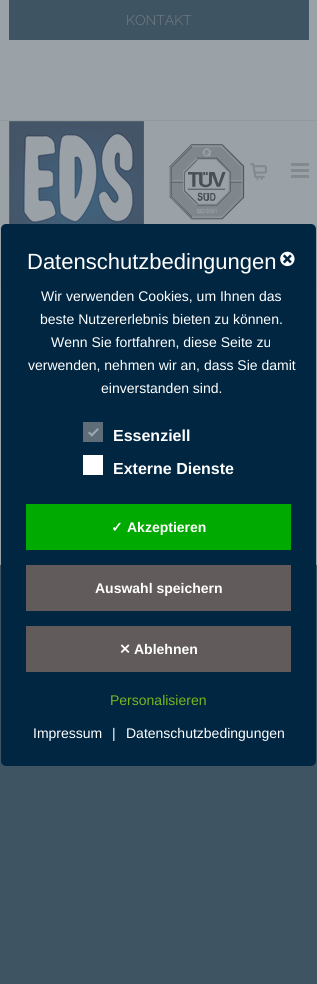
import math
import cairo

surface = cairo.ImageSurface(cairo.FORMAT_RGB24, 317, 984)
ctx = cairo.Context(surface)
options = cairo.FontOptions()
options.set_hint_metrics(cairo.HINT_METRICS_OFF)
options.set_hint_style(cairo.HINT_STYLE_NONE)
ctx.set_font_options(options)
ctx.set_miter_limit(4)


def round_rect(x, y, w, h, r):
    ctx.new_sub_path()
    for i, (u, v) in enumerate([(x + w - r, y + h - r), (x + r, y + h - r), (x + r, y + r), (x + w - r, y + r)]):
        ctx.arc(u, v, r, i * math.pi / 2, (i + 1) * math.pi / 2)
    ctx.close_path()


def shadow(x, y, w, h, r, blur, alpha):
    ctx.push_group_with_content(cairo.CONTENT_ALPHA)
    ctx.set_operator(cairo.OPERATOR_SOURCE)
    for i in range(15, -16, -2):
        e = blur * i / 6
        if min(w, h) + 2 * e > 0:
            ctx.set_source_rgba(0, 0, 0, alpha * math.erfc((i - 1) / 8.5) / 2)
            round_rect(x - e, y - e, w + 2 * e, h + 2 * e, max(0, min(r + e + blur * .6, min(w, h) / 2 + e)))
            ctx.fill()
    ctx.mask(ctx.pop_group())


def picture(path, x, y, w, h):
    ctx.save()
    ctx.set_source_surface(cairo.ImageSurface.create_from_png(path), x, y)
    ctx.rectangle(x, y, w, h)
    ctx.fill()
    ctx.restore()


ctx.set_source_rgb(0.247, 0.329, 0.388)
ctx.paint()
ctx.set_source_rgb(0.608, 0.635, 0.655)
ctx.rectangle(0, 121, 317, 444)
ctx.fill()
ctx.save()
ctx.rectangle(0, 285, 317, 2)
ctx.clip()
ctx.set_source_rgb(0.247, 0.275, 0.294)
shadow(-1, 120, 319, 166, 0, 1, 0.16)
ctx.restore()
ctx.rectangle(0, 0, 317, 120)
ctx.fill()
ctx.set_source_rgb(0.573, 0.604, 0.62)
ctx.rectangle(0, 120, 317, 1)
ctx.fill()
ctx.set_source_rgb(0.247, 0.329, 0.388)
ctx.rectangle(9, 0, 300, 40)
ctx.fill()
ctx.select_font_face("Raleway Thin")
ctx.set_font_size(14)
ctx.set_source_rgb(0.463, 0.49, 0.51)
ctx.move_to(126, 25)
ctx.show_text("KONTAKT")
picture("img1.png", 9, 121, 135, 103)
picture("img2.png", 250, 163, 17, 17)
picture("img3.png", 291, 163, 18, 15)
picture("img4.png", 169, 144, 76, 76)
ctx.set_source_rgb(0, 0.149, 0.259)
round_rect(1, 224, 315, 542, 5)
ctx.fill()
ctx.select_font_face("Liberation Sans")
ctx.set_font_size(22)
ctx.set_source_rgb(1, 1, 1)
ctx.move_to(27, 269)
ctx.show_text("Datenschutzbedingungen")
picture("img5.png", 280, 251, 15, 16)
ctx.set_font_size(14)
ctx.move_to(41, 301)
ctx.show_text("Wir verwenden Cookies, um Ihnen das")
ctx.move_to(40, 324)
ctx.show_text("beste Nutzererlebnis bieten zu können.")
ctx.move_to(51, 347)
ctx.show_text("Wenn Sie fortfahren, diese Seite zu")
ctx.move_to(28, 370)
ctx.show_text("verwenden, nehmen wir an, dass Sie damit")
ctx.move_to(101, 393)
ctx.show_text("einverstanden sind.")
ctx.set_source_rgb(0.369, 0.427, 0.471)
ctx.rectangle(83, 422, 20, 20)
ctx.fill()
ctx.set_source_rgb(0.6, 0.659, 0.702)
ctx.new_path()
ctx.move_to(97.5, 428)
ctx.line_to(99, 429.5)
ctx.line_to(92, 436.5)
ctx.line_to(90.5, 435)
ctx.close_path()
ctx.fill()
ctx.new_path()
ctx.move_to(89.5, 431.5)
ctx.line_to(93, 435)
ctx.line_to(92, 436.5)
ctx.line_to(88, 433)
ctx.close_path()
ctx.fill()
ctx.select_font_face("Liberation Sans", cairo.FONT_SLANT_NORMAL, cairo.FONT_WEIGHT_BOLD)
ctx.set_font_size(16)
ctx.set_source_rgb(1, 1, 1)
ctx.move_to(113, 441)
ctx.show_text("Essenziell")
ctx.rectangle(83, 455, 20, 20)
ctx.fill()
ctx.move_to(113, 474)
ctx.show_text("Externe Dienste")
ctx.set_source_rgb(0, 0.667, 0)
ctx.rectangle(26, 504, 265, 46)
ctx.fill()
ctx.select_font_face("DejaVu Sans", cairo.FONT_SLANT_NORMAL, cairo.FONT_WEIGHT_BOLD)
ctx.set_font_size(14)
ctx.set_source_rgb(1, 1, 1)
ctx.move_to(111, 532)
ctx.show_text("✓")
ctx.select_font_face("Liberation Sans", cairo.FONT_SLANT_NORMAL, cairo.FONT_WEIGHT_BOLD)
ctx.move_to(127, 532)
ctx.show_text("Akzeptieren")
ctx.set_source_rgb(0.38, 0.357, 0.357)
ctx.rectangle(26, 565, 265, 46)
ctx.fill()
ctx.set_source_rgb(1, 1, 1)
ctx.move_to(95, 593)
ctx.show_text("Auswahl speichern")
ctx.set_source_rgb(0.38, 0.357, 0.357)
ctx.rectangle(26, 626, 265, 46)
ctx.fill()
ctx.select_font_face("DejaVu Sans", cairo.FONT_SLANT_NORMAL, cairo.FONT_WEIGHT_BOLD)
ctx.set_source_rgb(1, 1, 1)
ctx.move_to(119, 654)
ctx.show_text("✕")
ctx.select_font_face("Liberation Sans", cairo.FONT_SLANT_NORMAL, cairo.FONT_WEIGHT_BOLD)
ctx.move_to(134, 654)
ctx.show_text("Ablehnen")
ctx.select_font_face("Liberation Sans")
ctx.set_source_rgb(0.475, 0.71, 0.122)
ctx.move_to(110, 705)
ctx.show_text("Personalisieren")
ctx.set_source_rgb(1, 1, 1)
ctx.move_to(33, 738)
ctx.show_text("Impressum")
ctx.move_to(112, 738)
ctx.show_text("|")
ctx.move_to(126, 738)
ctx.show_text("Datenschutzbedingungen")
surface.write_to_png("page.png")
